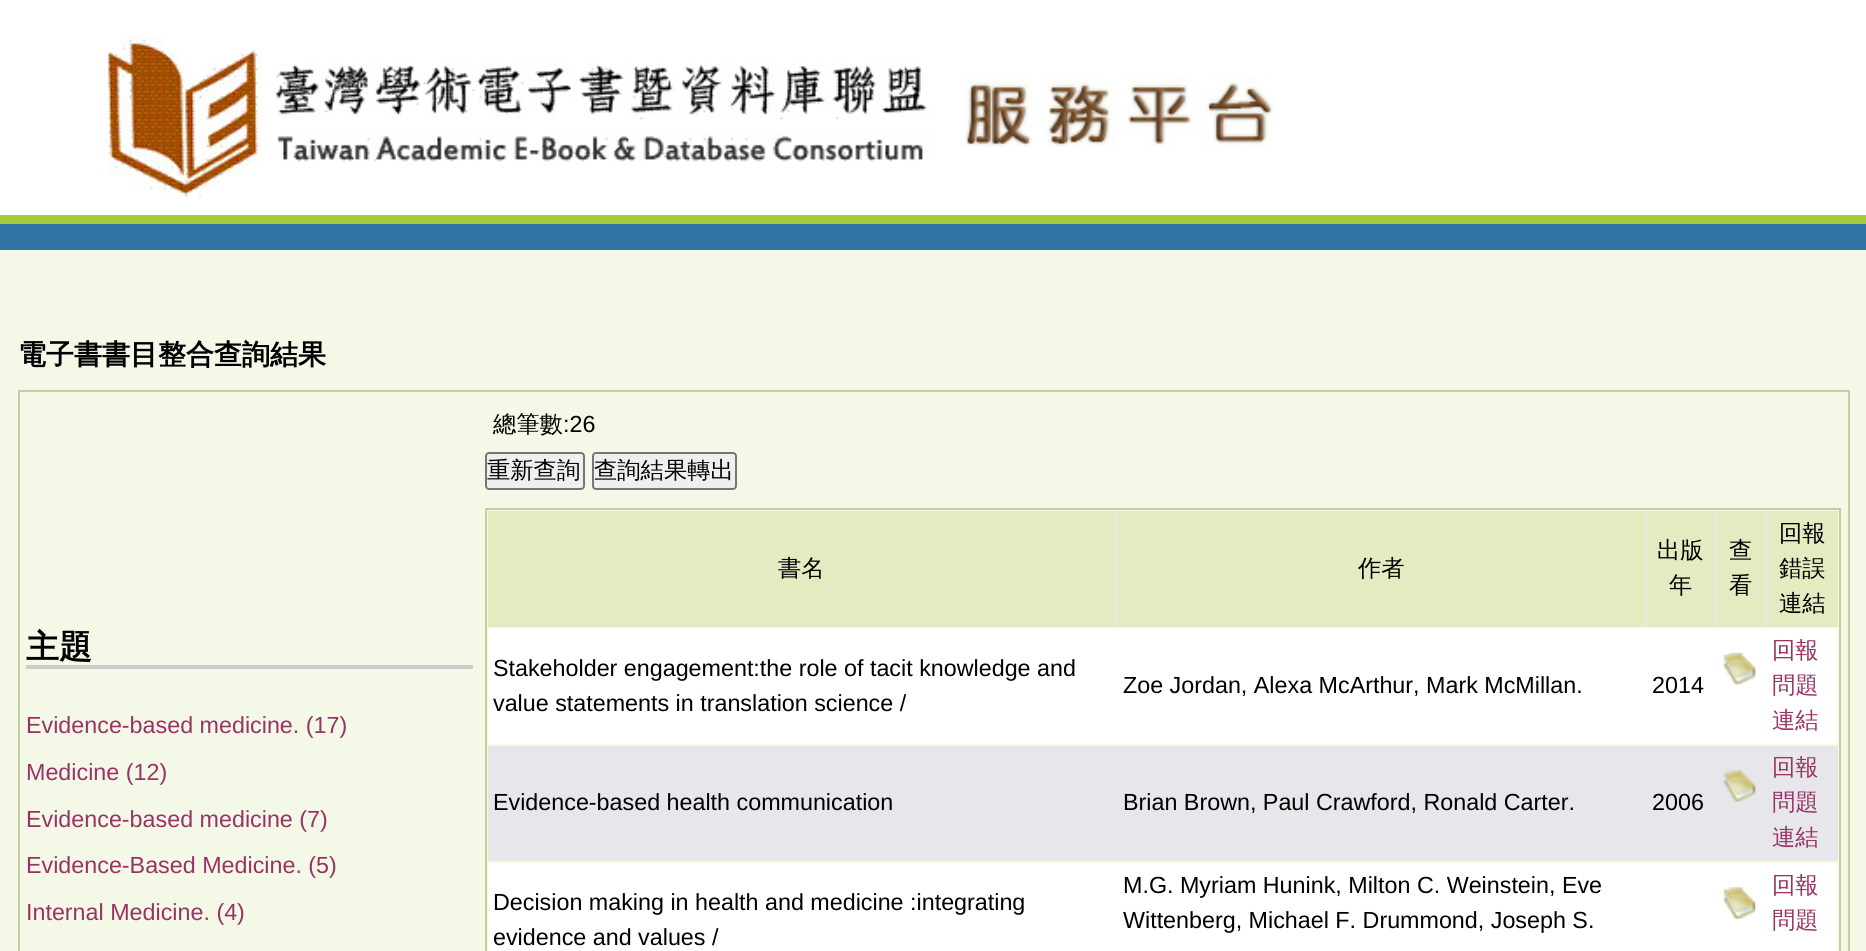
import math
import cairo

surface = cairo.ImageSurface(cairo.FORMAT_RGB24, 1866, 951)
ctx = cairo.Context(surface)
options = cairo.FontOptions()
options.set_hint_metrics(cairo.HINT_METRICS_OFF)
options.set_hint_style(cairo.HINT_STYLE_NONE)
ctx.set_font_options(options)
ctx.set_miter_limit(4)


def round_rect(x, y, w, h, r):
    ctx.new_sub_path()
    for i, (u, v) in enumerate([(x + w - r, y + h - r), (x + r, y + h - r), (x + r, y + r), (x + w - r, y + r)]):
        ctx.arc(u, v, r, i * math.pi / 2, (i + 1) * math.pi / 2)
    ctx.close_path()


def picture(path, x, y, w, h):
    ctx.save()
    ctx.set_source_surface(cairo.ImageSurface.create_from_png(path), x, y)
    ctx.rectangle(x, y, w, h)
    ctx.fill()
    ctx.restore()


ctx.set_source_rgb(0.957, 0.969, 0.906)
ctx.paint()
ctx.set_source_rgb(1, 1, 1)
ctx.rectangle(0, 0, 1866, 215)
ctx.fill()
ctx.set_source_rgb(0.651, 0.804, 0.216)
ctx.rectangle(0, 215, 1866, 9)
ctx.fill()
picture("img1.png", 108, 35, 1165, 163)
ctx.set_source_rgb(0.184, 0.455, 0.643)
ctx.rectangle(0, 224, 1866, 26)
ctx.fill()
ctx.select_font_face("WenQuanYi Zen Hei", cairo.FONT_SLANT_NORMAL, cairo.FONT_WEIGHT_BOLD)
ctx.set_font_size(28)
ctx.set_source_rgb(0, 0, 0)
ctx.move_to(18, 364)
ctx.show_text("電子書書目整合查詢結果")
ctx.rectangle(19, 391, 1830, 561)
ctx.set_source_rgb(0.773, 0.812, 0.608)
ctx.stroke()
ctx.set_source_rgb(0.8, 0.8, 0.8)
ctx.rectangle(26, 665, 447, 4)
ctx.fill()
ctx.set_font_size(33)
ctx.set_source_rgb(0, 0, 0)
ctx.move_to(26, 658)
ctx.show_text("主題")
ctx.select_font_face("Liberation Sans")
ctx.set_font_size(23.3)
ctx.set_source_rgb(0.6, 0.2, 0.4)
ctx.move_to(26, 733)
ctx.show_text("Evidence-based medicine. (17)")
ctx.move_to(26, 780)
ctx.show_text("Medicine (12)")
ctx.move_to(26, 827)
ctx.show_text("Evidence-based medicine (7)")
ctx.move_to(26, 873)
ctx.show_text("Evidence-Based Medicine. (5)")
ctx.move_to(26, 920)
ctx.show_text("Internal Medicine. (4)")
ctx.select_font_face("WenQuanYi Zen Hei Medium")
ctx.set_source_rgb(0, 0, 0)
ctx.move_to(493, 432)
ctx.show_text("總筆數")
ctx.select_font_face("Liberation Sans")
ctx.move_to(563, 432)
ctx.show_text(":26")
ctx.set_source_rgb(0.937, 0.937, 0.937)
round_rect(486, 453, 98, 36, 3)
ctx.fill_preserve()
ctx.set_source_rgb(0.463, 0.463, 0.463)
ctx.stroke()
ctx.select_font_face("WenQuanYi Zen Hei Medium")
ctx.set_source_rgb(0, 0, 0)
ctx.move_to(487, 478)
ctx.show_text("重新查詢")
ctx.set_source_rgb(0.937, 0.937, 0.937)
round_rect(593, 453, 143, 36, 3)
ctx.fill_preserve()
ctx.set_source_rgb(0.463, 0.463, 0.463)
ctx.stroke()
ctx.set_source_rgb(0, 0, 0)
ctx.move_to(594, 478)
ctx.show_text("查詢結果轉出")
ctx.rectangle(486, 509, 1354, 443)
ctx.set_source_rgb(0.773, 0.812, 0.608)
ctx.stroke()
ctx.set_source_rgb(0.902, 0.902, 0.918)
ctx.rectangle(1115, 511, 653, 116)
ctx.fill()
ctx.set_source_rgb(0.89, 0.925, 0.753)
ctx.rectangle(488, 511, 627, 116)
ctx.fill()
ctx.set_source_rgb(0, 0, 0)
ctx.move_to(778, 576)
ctx.show_text("書名")
ctx.set_source_rgb(0.89, 0.925, 0.753)
ctx.rectangle(1117, 511, 528, 116)
ctx.fill()
ctx.set_source_rgb(0, 0, 0)
ctx.move_to(1358, 576)
ctx.show_text("作者")
ctx.set_source_rgb(0.89, 0.925, 0.753)
ctx.rectangle(1647, 511, 68, 116)
ctx.fill()
ctx.set_source_rgb(0, 0, 0)
ctx.move_to(1657, 558)
ctx.show_text("出版")
ctx.move_to(1669, 593)
ctx.show_text("年")
ctx.set_source_rgb(0.89, 0.925, 0.753)
ctx.rectangle(1717, 511, 49, 116)
ctx.fill()
ctx.set_source_rgb(0, 0, 0)
ctx.move_to(1729, 558)
ctx.show_text("查")
ctx.move_to(1729, 593)
ctx.show_text("看")
ctx.set_source_rgb(0.89, 0.925, 0.753)
ctx.rectangle(1768, 511, 70, 116)
ctx.fill()
ctx.set_source_rgb(0, 0, 0)
ctx.move_to(1779, 541)
ctx.show_text("回報")
ctx.move_to(1779, 576)
ctx.show_text("錯誤")
ctx.move_to(1779, 611)
ctx.show_text("連結")
ctx.set_source_rgb(1, 1, 1)
ctx.rectangle(488, 628, 1350, 116)
ctx.fill()
ctx.select_font_face("Liberation Sans")
ctx.set_source_rgb(0, 0, 0)
ctx.move_to(493, 676)
ctx.show_text("Stakeholder engagement:the role of tacit knowledge and")
ctx.move_to(493, 711)
ctx.show_text("value statements in translation science /")
ctx.move_to(1123, 693)
ctx.show_text("Zoe Jordan, Alexa McArthur, Mark McMillan.")
ctx.move_to(1652, 693)
ctx.show_text("2014")
picture("img2.png", 1723, 652, 33, 33)
ctx.select_font_face("WenQuanYi Zen Hei Medium")
ctx.set_source_rgb(0.6, 0.2, 0.4)
ctx.move_to(1772, 658)
ctx.show_text("回報")
ctx.move_to(1772, 693)
ctx.show_text("問題")
ctx.move_to(1772, 728)
ctx.show_text("連結")
ctx.set_source_rgb(0.902, 0.902, 0.918)
ctx.rectangle(488, 746, 1350, 115)
ctx.fill()
ctx.select_font_face("Liberation Sans")
ctx.set_source_rgb(0, 0, 0)
ctx.move_to(493, 810)
ctx.show_text("Evidence-based health communication")
ctx.move_to(1123, 810)
ctx.show_text("Brian Brown, Paul Crawford, Ronald Carter.")
ctx.move_to(1652, 810)
ctx.show_text("2006")
picture("img3.png", 1723, 770, 33, 32)
ctx.select_font_face("WenQuanYi Zen Hei Medium")
ctx.set_source_rgb(0.6, 0.2, 0.4)
ctx.move_to(1772, 775)
ctx.show_text("回報")
ctx.move_to(1772, 810)
ctx.show_text("問題")
ctx.move_to(1772, 845)
ctx.show_text("連結")
ctx.set_source_rgb(1, 1, 1)
ctx.rectangle(488, 863, 1350, 88)
ctx.fill()
ctx.select_font_face("Liberation Sans")
ctx.set_source_rgb(0, 0, 0)
ctx.move_to(493, 910)
ctx.show_text("Decision making in health and medicine :integrating")
ctx.move_to(493, 945)
ctx.show_text("evidence and values /")
ctx.move_to(1123, 893)
ctx.show_text("M.G. Myriam Hunink, Milton C. Weinstein, Eve")
ctx.move_to(1123, 928)
ctx.show_text("Wittenberg, Michael F. Drummond, Joseph S.")
picture("img4.png", 1723, 887, 33, 32)
ctx.select_font_face("WenQuanYi Zen Hei Medium")
ctx.set_source_rgb(0.6, 0.2, 0.4)
ctx.move_to(1772, 893)
ctx.show_text("回報")
ctx.move_to(1772, 928)
ctx.show_text("問題")
surface.write_to_png("page.png")
